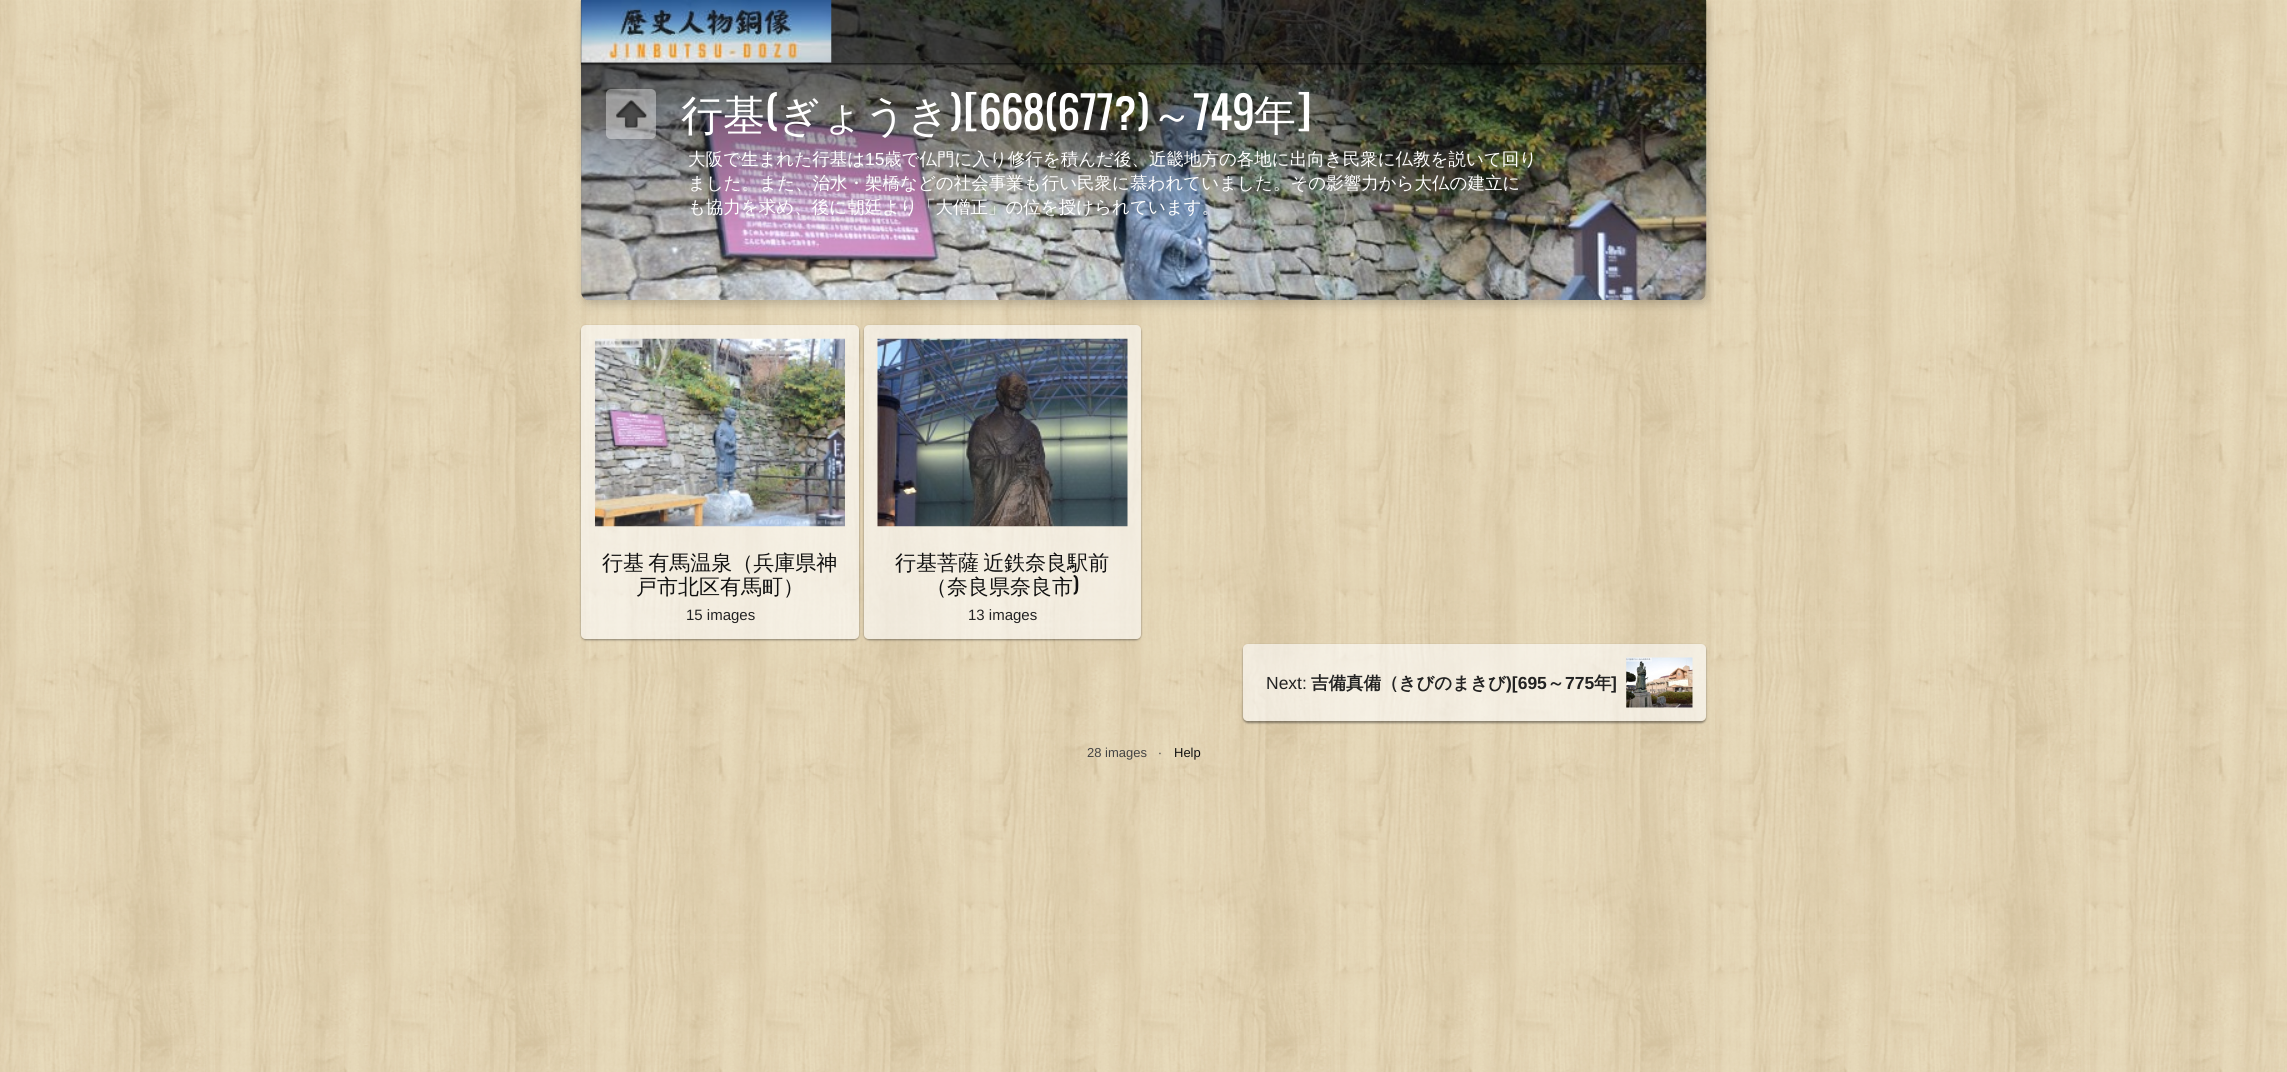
import math
import cairo

surface = cairo.ImageSurface(cairo.FORMAT_RGB24, 2287, 1072)
ctx = cairo.Context(surface)
options = cairo.FontOptions()
options.set_hint_metrics(cairo.HINT_METRICS_OFF)
options.set_hint_style(cairo.HINT_STYLE_NONE)
ctx.set_font_options(options)
ctx.set_miter_limit(4)


def spaced_text(x, y, s, letter, word):
    ctx.move_to(x, y)
    for ch in s:
        ctx.show_text(ch)
        ctx.rel_move_to(letter + word * (ch == ' '), 0)


def round_rect(x, y, w, h, r):
    ctx.new_sub_path()
    for i, (u, v) in enumerate([(x + w - r, y + h - r), (x + r, y + h - r), (x + r, y + r), (x + w - r, y + r)]):
        ctx.arc(u, v, r, i * math.pi / 2, (i + 1) * math.pi / 2)
    ctx.close_path()


def shadow(x, y, w, h, r, blur, alpha):
    ctx.push_group_with_content(cairo.CONTENT_ALPHA)
    ctx.set_operator(cairo.OPERATOR_SOURCE)
    for i in range(15, -16, -2):
        e = blur * i / 6
        if min(w, h) + 2 * e > 0:
            ctx.set_source_rgba(0, 0, 0, alpha * math.erfc((i - 1) / 8.5) / 2)
            round_rect(x - e, y - e, w + 2 * e, h + 2 * e, max(0, min(r + e + blur * .6, min(w, h) / 2 + e)))
            ctx.fill()
    ctx.mask(ctx.pop_group())


def picture(path, x, y, w, h):
    ctx.save()
    ctx.set_source_surface(cairo.ImageSurface.create_from_png(path), x, y)
    ctx.rectangle(x, y, w, h)
    ctx.fill()
    ctx.restore()


ctx.set_source_rgb(0.929, 0.878, 0.753)
ctx.paint()
picture("img1.png", 0, 0, 2287, 1072)
ctx.set_source_rgb(0, 0, 0)
shadow(583, 4, 1125, 300, 8, 5, 0.2)
ctx.set_source_rgba(0, 0, 0, 0.2)
ctx.new_path()
ctx.move_to(581, 0)
ctx.line_to(1706, 0)
ctx.line_to(1706, 292)
ctx.curve_to(1706, 296.5, 1702.5, 300, 1698, 300)
ctx.line_to(589, 300)
ctx.curve_to(584.5, 300, 581, 296.5, 581, 292)
ctx.close_path()
ctx.fill()
picture("img2.png", 581, 0, 1126, 300)
ctx.save()
ctx.set_fill_rule(cairo.FILL_RULE_EVEN_ODD)
ctx.new_path()
ctx.move_to(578, 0)
ctx.line_to(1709, 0)
ctx.line_to(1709, 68)
ctx.line_to(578, 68)
ctx.close_path()
ctx.move_to(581, 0)
ctx.line_to(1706, 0)
ctx.line_to(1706, 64)
ctx.line_to(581, 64)
ctx.close_path()
ctx.clip()
ctx.set_source_rgb(0, 0, 0)
shadow(581, 1, 1125, 64, 0, 0.5, 0.4)
ctx.restore()
ctx.set_source_rgba(0, 0, 0, 0.7)
ctx.rectangle(581, 0, 1125, 64)
ctx.fill()
ctx.set_source_rgba(0, 0, 0, 0.4)
ctx.rectangle(581, 63, 1125, 1)
ctx.fill()
picture("img3.png", 581, 0, 251, 63)
gradient = cairo.LinearGradient(1144, 64, 1144, 236)
gradient.add_color_stop_rgba(0, 0, 0, 0, 0.6)
gradient.add_color_stop_rgba(1, 0, 0, 0, 0)
ctx.set_source(gradient)
ctx.rectangle(581, 64, 1125, 166)
ctx.fill()
ctx.set_source_rgba(1, 1, 1, 0.4)
round_rect(606, 89, 50, 50, 5)
ctx.fill()
picture("img4.png", 616, 100, 31, 28)
ctx.select_font_face("WenQuanYi Zen Hei Medium")
ctx.set_font_size(42)
ctx.set_source_rgb(1, 1, 1)
ctx.move_to(681, 130)
ctx.show_text("行基")
ctx.select_font_face("Oswald")
ctx.move_to(765, 130)
ctx.show_text("(")
ctx.select_font_face("WenQuanYi Zen Hei Medium")
ctx.move_to(778, 130)
ctx.show_text("ぎょうき")
ctx.select_font_face("Oswald")
ctx.move_to(950, 130)
ctx.show_text(")[668(677?)")
ctx.select_font_face("WenQuanYi Zen Hei Medium")
ctx.move_to(1151, 130)
ctx.show_text("～")
ctx.select_font_face("Oswald")
ctx.move_to(1193, 130)
ctx.show_text("749")
ctx.select_font_face("WenQuanYi Zen Hei Medium")
ctx.move_to(1254, 130)
ctx.show_text("年")
ctx.select_font_face("Oswald")
ctx.move_to(1296, 130)
ctx.show_text("]")
ctx.select_font_face("WenQuanYi Zen Hei Medium")
ctx.set_font_size(17.5)
ctx.move_to(688, 165)
ctx.show_text("大阪で生まれた行基は")
ctx.select_font_face("Liberation Sans")
ctx.move_to(865, 165)
ctx.show_text("15")
ctx.select_font_face("WenQuanYi Zen Hei Medium")
ctx.move_to(884, 165)
ctx.show_text("歳で仏門に入り修行を積んだ後、近畿地方の各地に出向き民衆に仏教を説いて回り")
ctx.move_to(688, 189)
ctx.show_text("ました。また、治水・架橋などの社会事業も行い民衆に慕われていました。その影響力から大仏の建立に")
ctx.move_to(688, 213)
ctx.show_text("も協力を求め、後に朝廷より「大僧正」の位を授けられています。")
ctx.save()
ctx.set_fill_rule(cairo.FILL_RULE_EVEN_ODD)
ctx.new_path()
ctx.move_to(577, 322)
ctx.line_to(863, 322)
ctx.line_to(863, 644)
ctx.line_to(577, 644)
ctx.close_path()
ctx.move_to(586, 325)
ctx.line_to(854, 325)
ctx.curve_to(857, 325, 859, 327, 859, 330)
ctx.line_to(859, 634)
ctx.curve_to(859, 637, 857, 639, 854, 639)
ctx.line_to(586, 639)
ctx.curve_to(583, 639, 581, 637, 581, 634)
ctx.line_to(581, 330)
ctx.curve_to(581, 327, 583, 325, 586, 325)
ctx.close_path()
ctx.clip()
ctx.set_source_rgb(0, 0, 0)
shadow(581, 326, 278, 314, 5, 1, 0.4)
ctx.restore()
ctx.set_source_rgba(1, 1, 1, 0.6)
round_rect(581, 325, 278, 314, 5)
ctx.fill()
picture("img5.png", 595, 338, 250, 189)
ctx.set_font_size(21)
ctx.set_source_rgb(0.067, 0.067, 0.067)
spaced_text(602, 570, "行基 有馬温泉（兵庫県神", 0, -2)
ctx.move_to(636, 594)
ctx.show_text("戸市北区有馬町）")
ctx.select_font_face("Liberation Sans")
ctx.set_font_size(15)
ctx.set_source_rgb(0.133, 0.133, 0.133)
ctx.move_to(686, 620)
ctx.show_text("15 images")
ctx.save()
ctx.set_fill_rule(cairo.FILL_RULE_EVEN_ODD)
ctx.new_path()
ctx.move_to(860, 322)
ctx.line_to(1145, 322)
ctx.line_to(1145, 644)
ctx.line_to(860, 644)
ctx.close_path()
ctx.move_to(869, 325)
ctx.line_to(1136, 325)
ctx.curve_to(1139, 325, 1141, 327, 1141, 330)
ctx.line_to(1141, 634)
ctx.curve_to(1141, 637, 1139, 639, 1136, 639)
ctx.line_to(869, 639)
ctx.curve_to(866, 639, 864, 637, 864, 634)
ctx.line_to(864, 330)
ctx.curve_to(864, 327, 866, 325, 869, 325)
ctx.close_path()
ctx.clip()
ctx.set_source_rgb(0, 0, 0)
shadow(864, 326, 277, 314, 5, 1, 0.4)
ctx.restore()
ctx.set_source_rgba(1, 1, 1, 0.6)
round_rect(864, 325, 277, 314, 5)
ctx.fill()
picture("img6.png", 877, 338, 251, 189)
ctx.select_font_face("WenQuanYi Zen Hei Medium")
ctx.set_font_size(21)
ctx.set_source_rgb(0.067, 0.067, 0.067)
spaced_text(895, 570, "行基菩薩 近鉄奈良駅前", 0, -2)
ctx.move_to(926, 594)
ctx.show_text("（奈良県奈良市")
ctx.select_font_face("Oswald")
ctx.move_to(1073, 594)
ctx.show_text(")")
ctx.select_font_face("Liberation Sans")
ctx.set_font_size(15)
ctx.set_source_rgb(0.133, 0.133, 0.133)
ctx.move_to(968, 620)
ctx.show_text("13 images")
ctx.save()
ctx.set_fill_rule(cairo.FILL_RULE_EVEN_ODD)
ctx.new_path()
ctx.move_to(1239, 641)
ctx.line_to(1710, 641)
ctx.line_to(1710, 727)
ctx.line_to(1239, 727)
ctx.close_path()
ctx.move_to(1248, 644)
ctx.line_to(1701, 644)
ctx.curve_to(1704, 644, 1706, 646, 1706, 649)
ctx.line_to(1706, 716)
ctx.curve_to(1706, 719, 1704, 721, 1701, 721)
ctx.line_to(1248, 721)
ctx.curve_to(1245, 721, 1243, 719, 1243, 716)
ctx.line_to(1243, 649)
ctx.curve_to(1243, 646, 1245, 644, 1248, 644)
ctx.close_path()
ctx.clip()
ctx.set_source_rgb(0, 0, 0)
shadow(1243, 645, 463, 78, 5, 1, 0.4)
ctx.restore()
ctx.set_source_rgba(1, 1, 1, 0.6)
round_rect(1243, 644, 463, 77, 5)
ctx.fill()
ctx.set_font_size(17.5)
ctx.set_source_rgb(0.133, 0.133, 0.133)
ctx.move_to(1266, 689)
ctx.show_text("Next:")
ctx.select_font_face("WenQuanYi Zen Hei", cairo.FONT_SLANT_NORMAL, cairo.FONT_WEIGHT_BOLD)
ctx.move_to(1311, 689)
ctx.show_text("吉備真備（きびのまきび")
ctx.select_font_face("Liberation Sans", cairo.FONT_SLANT_NORMAL, cairo.FONT_WEIGHT_BOLD)
ctx.move_to(1506, 689)
ctx.show_text(")[695")
ctx.select_font_face("WenQuanYi Zen Hei", cairo.FONT_SLANT_NORMAL, cairo.FONT_WEIGHT_BOLD)
ctx.move_to(1547, 689)
ctx.show_text("～")
ctx.select_font_face("Liberation Sans", cairo.FONT_SLANT_NORMAL, cairo.FONT_WEIGHT_BOLD)
ctx.move_to(1565, 689)
ctx.show_text("775")
ctx.select_font_face("WenQuanYi Zen Hei", cairo.FONT_SLANT_NORMAL, cairo.FONT_WEIGHT_BOLD)
ctx.move_to(1594, 689)
ctx.show_text("年")
ctx.select_font_face("Liberation Sans", cairo.FONT_SLANT_NORMAL, cairo.FONT_WEIGHT_BOLD)
ctx.move_to(1611, 689)
ctx.show_text("]")
picture("img7.png", 1626, 657, 67, 51)
ctx.select_font_face("Liberation Sans")
ctx.set_font_size(13)
ctx.set_source_rgb(0.267, 0.267, 0.267)
ctx.move_to(1087, 757)
ctx.show_text("28 images   ·")
ctx.set_source_rgb(0.067, 0.067, 0.067)
ctx.move_to(1174, 757)
ctx.show_text("Help")
surface.write_to_png("page.png")
